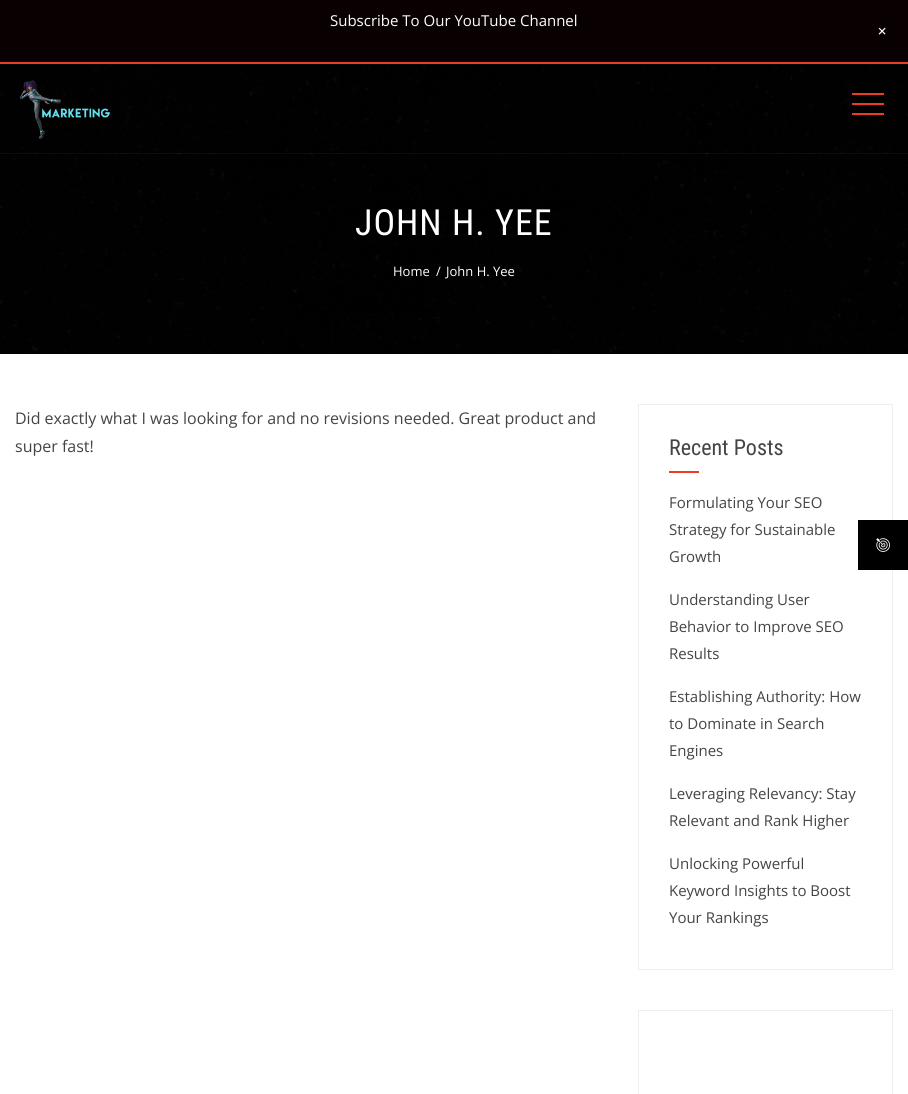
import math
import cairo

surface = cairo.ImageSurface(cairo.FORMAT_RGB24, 908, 1094)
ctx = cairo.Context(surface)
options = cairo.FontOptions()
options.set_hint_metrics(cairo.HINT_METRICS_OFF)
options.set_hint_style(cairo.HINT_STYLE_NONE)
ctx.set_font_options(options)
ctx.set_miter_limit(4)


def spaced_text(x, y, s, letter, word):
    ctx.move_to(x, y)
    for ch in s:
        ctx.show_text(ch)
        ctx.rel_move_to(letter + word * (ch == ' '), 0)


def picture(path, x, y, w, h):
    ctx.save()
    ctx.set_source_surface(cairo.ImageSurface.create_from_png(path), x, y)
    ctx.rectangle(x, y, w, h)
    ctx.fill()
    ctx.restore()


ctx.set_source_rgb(1, 1, 1)
ctx.paint()
ctx.set_source_rgb(0.039, 0.004, 0.004)
ctx.rectangle(0, 0, 908, 62)
ctx.fill()
ctx.select_font_face("Open Sans")
ctx.set_font_size(15)
ctx.set_source_rgb(1, 1, 1)
ctx.move_to(330, 26)
ctx.show_text("Subscribe To Our YouTube Channel")
ctx.set_font_size(18)
ctx.save()
ctx.translate(874, 32)
ctx.rotate(45 * math.pi / 180)
ctx.move_to(0, 0)
ctx.show_text("+")
ctx.restore()
ctx.set_source_rgb(0.933, 0.231, 0.141)
ctx.rectangle(0, 62, 908, 2)
ctx.fill()
picture("img2.png", 0, 64, 908, 290)
picture("img3.png", 0, 64, 908, 290)
ctx.set_source_rgba(1, 1, 1, 0.05)
ctx.rectangle(0, 153, 908, 1)
ctx.fill()
picture("img1.png", 20, 80, 90, 59)
ctx.set_source_rgb(0.933, 0.231, 0.141)
ctx.rectangle(852, 93, 32, 2)
ctx.fill()
ctx.rectangle(852, 113, 32, 2)
ctx.fill()
ctx.rectangle(852, 103, 32, 2)
ctx.fill()
ctx.select_font_face("Roboto Condensed")
ctx.set_font_size(36)
ctx.set_source_rgb(1, 1, 1)
spaced_text(355, 235, "JOHN H. YEE", 1, 0)
ctx.select_font_face("Open Sans")
ctx.set_font_size(13)
ctx.move_to(393, 276)
ctx.show_text("Home")
ctx.move_to(436, 276)
ctx.show_text("/")
ctx.move_to(446, 276)
ctx.show_text("John H. Yee")
ctx.set_font_size(16)
ctx.set_source_rgb(0.267, 0.267, 0.267)
ctx.move_to(15, 424)
ctx.show_text("Did exactly what I was looking for and no revisions needed. Great product and")
ctx.move_to(15, 452)
ctx.show_text("super fast!")
ctx.rectangle(638.5, 404.5, 254, 565)
ctx.set_source_rgb(0.933, 0.933, 0.933)
ctx.set_line_width(1)
ctx.stroke()
ctx.select_font_face("Roboto Condensed")
ctx.set_font_size(22)
ctx.set_source_rgb(0.267, 0.267, 0.267)
ctx.move_to(669, 455)
ctx.show_text("Recent Posts")
ctx.set_source_rgb(0.933, 0.231, 0.141)
ctx.rectangle(669, 471, 30, 2)
ctx.fill()
ctx.select_font_face("Open Sans")
ctx.set_font_size(15)
ctx.set_source_rgb(0.267, 0.267, 0.267)
ctx.move_to(669, 508)
ctx.show_text("Formulating Your SEO")
ctx.move_to(669, 535)
ctx.show_text("Strategy for Sustainable")
ctx.move_to(669, 562)
ctx.show_text("Growth")
ctx.move_to(669, 605)
ctx.show_text("Understanding User")
ctx.move_to(669, 632)
ctx.show_text("Behavior to Improve SEO")
ctx.move_to(669, 659)
ctx.show_text("Results")
ctx.move_to(669, 702)
ctx.show_text("Establishing Authority: How")
ctx.move_to(669, 729)
ctx.show_text("to Dominate in Search")
ctx.move_to(669, 756)
ctx.show_text("Engines")
ctx.move_to(669, 799)
ctx.show_text("Leveraging Relevancy: Stay")
ctx.move_to(669, 826)
ctx.show_text("Relevant and Rank Higher")
ctx.move_to(669, 869)
ctx.show_text("Unlocking Powerful")
ctx.move_to(669, 896)
ctx.show_text("Keyword Insights to Boost")
ctx.move_to(669, 923)
ctx.show_text("Your Rankings")
ctx.rectangle(638.5, 1010.5, 254, 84)
ctx.set_source_rgb(0.933, 0.933, 0.933)
ctx.stroke()
ctx.set_source_rgb(0, 0, 0)
ctx.rectangle(858, 520, 50, 50)
ctx.fill()
picture("img4.png", 876, 538, 14, 14)
surface.write_to_png("page.png")
